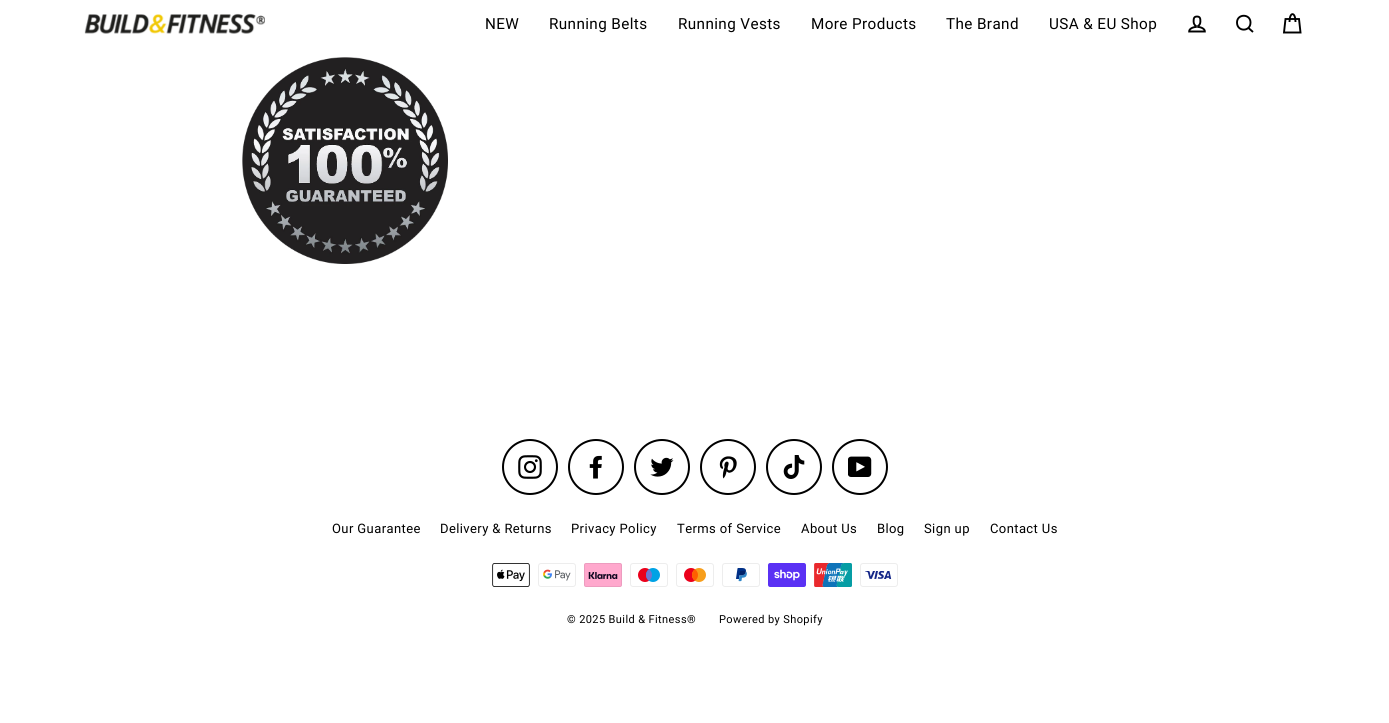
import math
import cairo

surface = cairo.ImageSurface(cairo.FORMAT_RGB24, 1389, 723)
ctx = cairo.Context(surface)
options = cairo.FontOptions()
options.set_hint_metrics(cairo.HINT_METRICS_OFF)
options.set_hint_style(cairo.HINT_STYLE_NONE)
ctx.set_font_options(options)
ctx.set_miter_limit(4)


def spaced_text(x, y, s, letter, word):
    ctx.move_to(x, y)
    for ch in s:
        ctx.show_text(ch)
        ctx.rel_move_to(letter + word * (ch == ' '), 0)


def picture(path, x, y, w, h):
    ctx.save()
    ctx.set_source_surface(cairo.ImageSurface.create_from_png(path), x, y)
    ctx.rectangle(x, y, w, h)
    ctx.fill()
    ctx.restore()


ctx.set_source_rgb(1, 1, 1)
ctx.paint()
picture("img1.png", 84, 13, 181, 21)
ctx.select_font_face("Roboto")
ctx.set_font_size(15.25)
ctx.set_source_rgb(0, 0, 0)
spaced_text(485, 29, "NEW", 0.4, 0)
spaced_text(549, 29, "Running Belts", 0.4, 0)
spaced_text(678, 29, "Running Vests", 0.4, 0)
spaced_text(811, 29, "More Products", 0.4, 0)
spaced_text(946, 29, "The Brand", 0.4, 0)
spaced_text(1049, 29, "USA & EU Shop", 0.4, 0)
picture("img2.png", 1188, 15, 18, 18)
ctx.new_path()
ctx.move_to(1250.5, 22.5)
ctx.curve_to(1250.5, 32, 1237, 32, 1237, 22.5)
ctx.curve_to(1237, 13.5, 1250.5, 13.5, 1250.5, 22.5)
ctx.close_path()
ctx.move_to(1253, 32)
ctx.line_to(1248.5, 28)
ctx.set_line_width(1.9)
ctx.stroke()
ctx.new_path()
ctx.move_to(1289.5, 22)
ctx.curve_to(1289.5, 11.5, 1295.5, 11.5, 1295.5, 22)
ctx.move_to(1285.5, 19)
ctx.line_to(1299, 19)
ctx.line_to(1300.5, 32.5)
ctx.line_to(1284, 32.5)
ctx.close_path()
ctx.stroke()
picture("img3.png", 242, 57, 206, 207)
ctx.arc(530, 467, 27, 0, 2 * math.pi)
ctx.set_line_width(2)
ctx.stroke()
picture("img4.png", 518, 455, 24, 24)
ctx.arc(596, 467, 27, 0, 2 * math.pi)
ctx.stroke()
picture("img5.png", 589, 455, 13, 24)
ctx.arc(662, 467, 27, 0, 2 * math.pi)
ctx.stroke()
picture("img6.png", 650, 457, 24, 20)
ctx.arc(728, 467, 27, 0, 2 * math.pi)
ctx.stroke()
picture("img7.png", 719, 456, 18, 23)
ctx.arc(794, 467, 27, 0, 2 * math.pi)
ctx.stroke()
picture("img8.png", 783, 455, 22, 24)
ctx.arc(860, 467, 27, 0, 2 * math.pi)
ctx.stroke()
picture("img9.png", 848, 456, 24, 21)
ctx.set_font_size(13)
spaced_text(332, 533, "Our Guarantee", 0.4, 0)
spaced_text(440, 533, "Delivery & Returns", 0.4, 0)
spaced_text(571, 533, "Privacy Policy", 0.4, 0)
spaced_text(677, 533, "Terms of Service", 0.4, 0)
spaced_text(801, 533, "About Us", 0.4, 0)
spaced_text(877, 533, "Blog", 0.4, 0)
spaced_text(924, 533, "Sign up", 0.4, 0)
spaced_text(990, 533, "Contact Us", 0.4, 0)
picture("img10.png", 492, 563, 38, 24)
picture("img11.png", 538, 563, 38, 24)
picture("img12.png", 584, 563, 38, 24)
picture("img13.png", 630, 563, 38, 24)
picture("img14.png", 676, 563, 38, 24)
picture("img15.png", 722, 563, 38, 24)
picture("img16.png", 768, 563, 38, 24)
picture("img17.png", 814, 563, 38, 24)
picture("img18.png", 860, 563, 38, 24)
ctx.set_font_size(11)
spaced_text(567, 623, "© 2025 Build & Fitness®", 0.4, 0)
spaced_text(719, 623, "Powered by Shopify", 0.4, 0)
surface.write_to_png("page.png")
